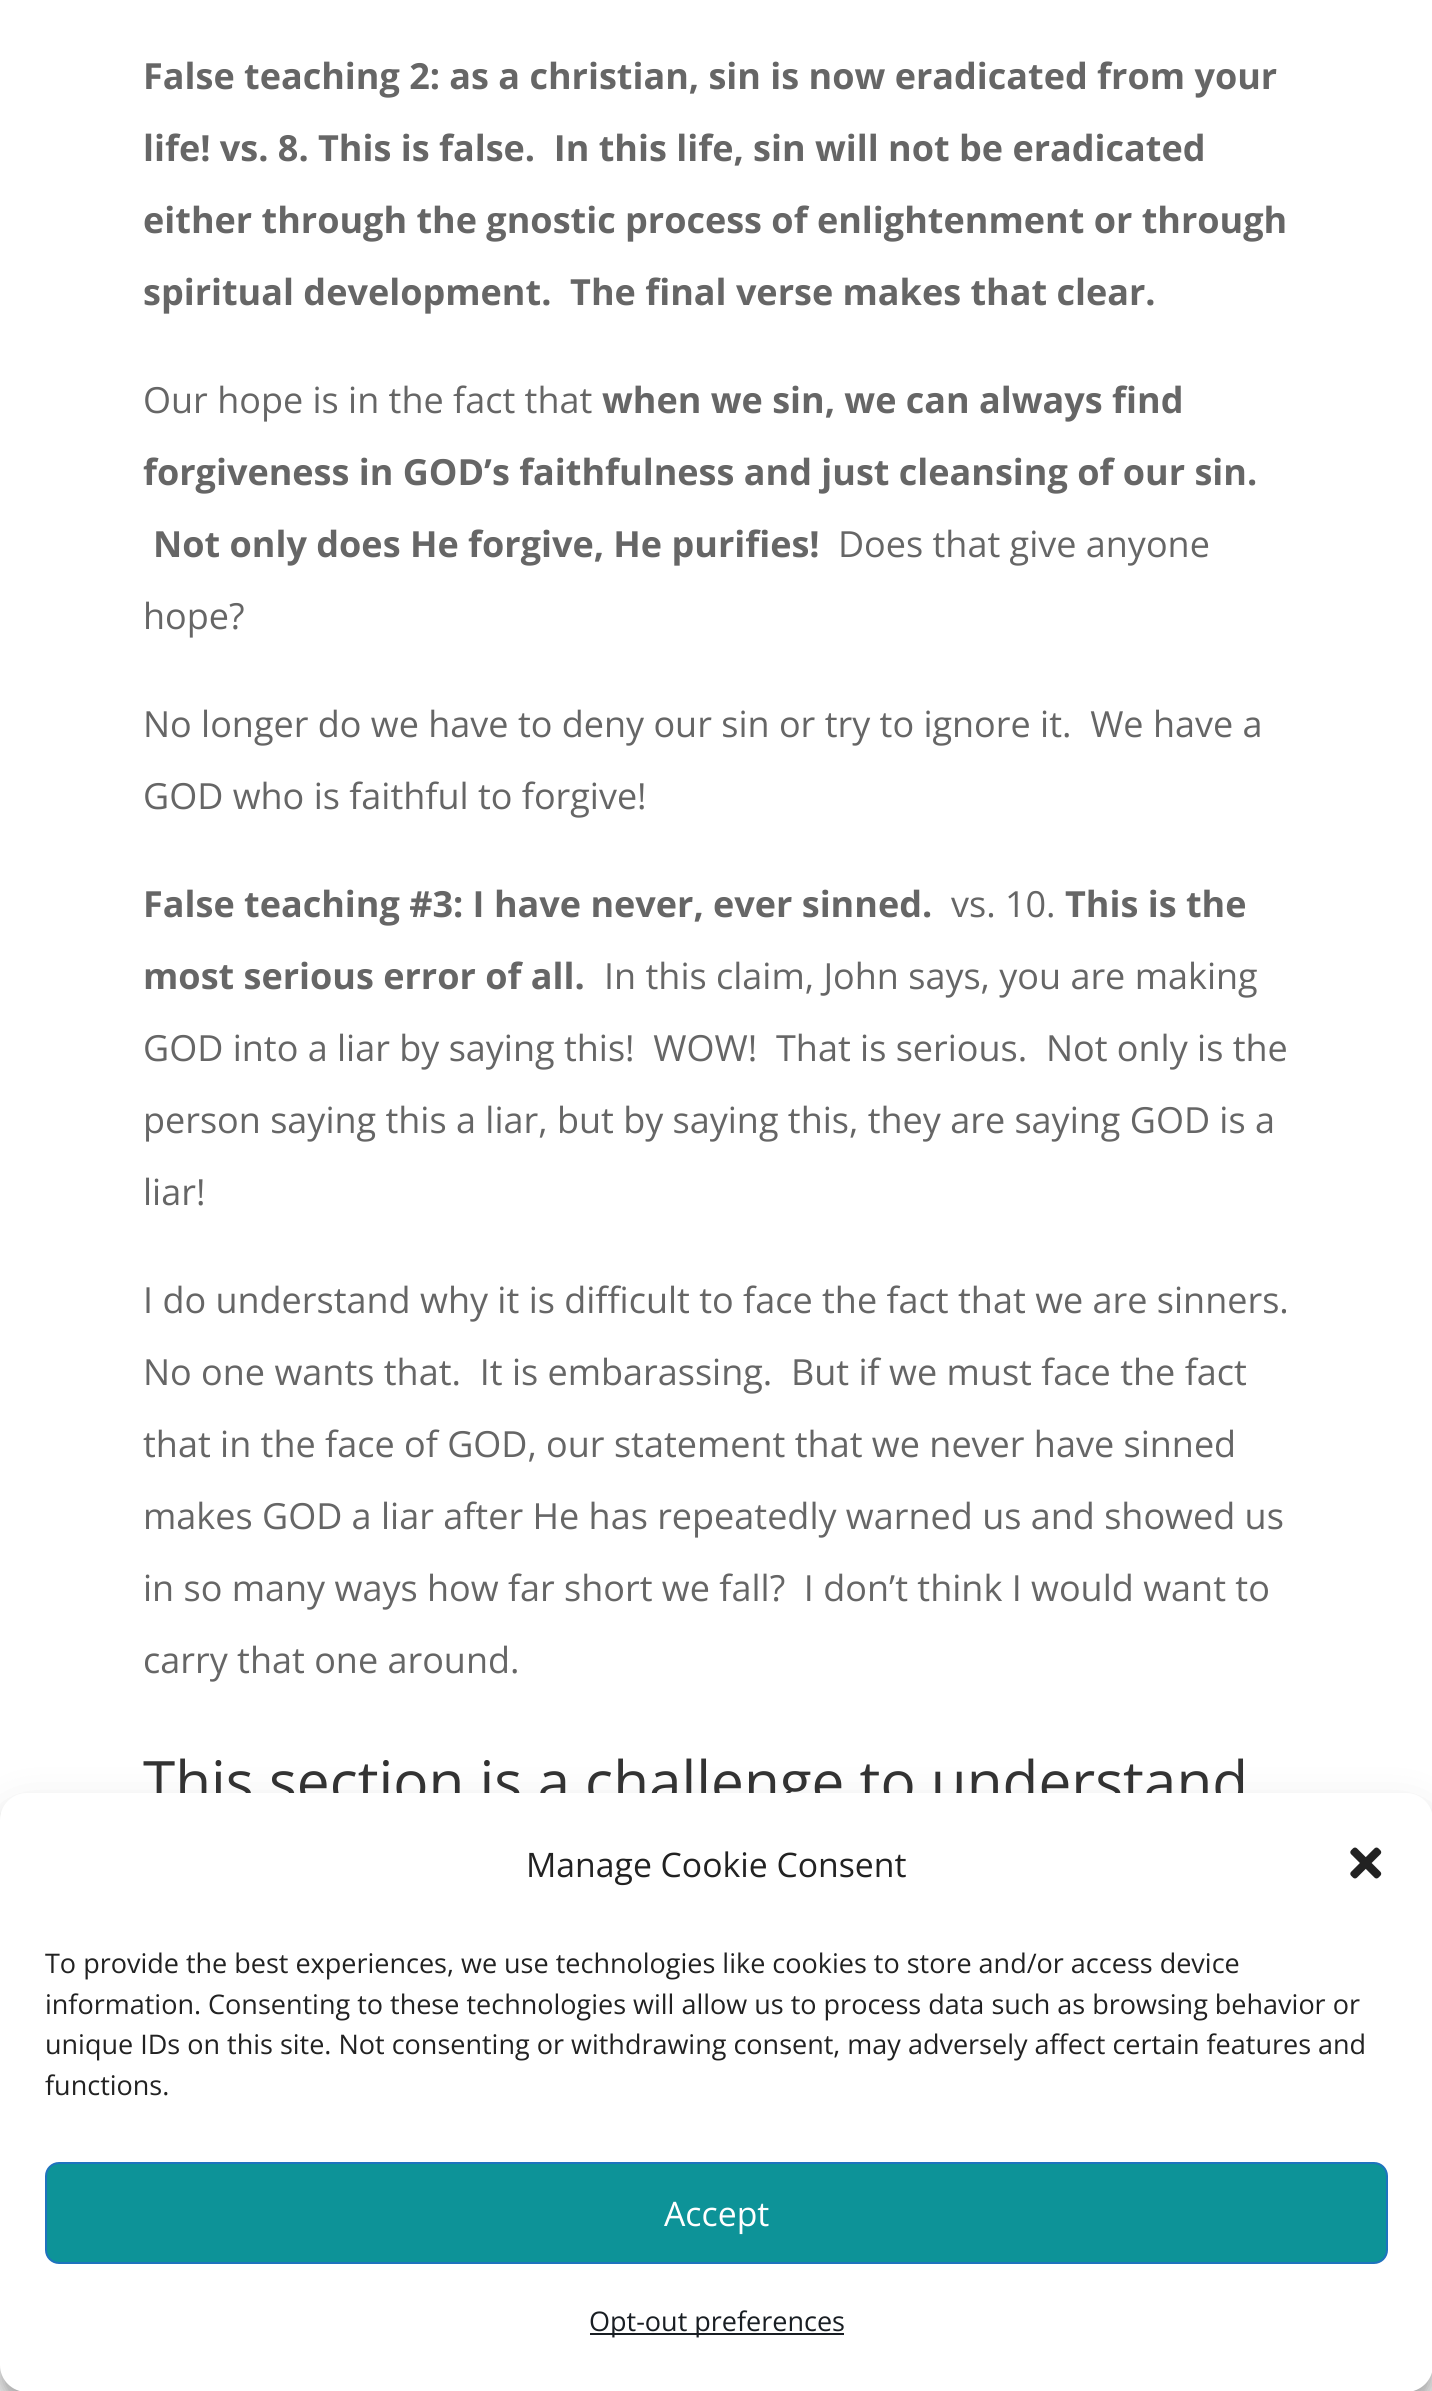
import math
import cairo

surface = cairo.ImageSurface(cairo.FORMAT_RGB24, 1432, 2391)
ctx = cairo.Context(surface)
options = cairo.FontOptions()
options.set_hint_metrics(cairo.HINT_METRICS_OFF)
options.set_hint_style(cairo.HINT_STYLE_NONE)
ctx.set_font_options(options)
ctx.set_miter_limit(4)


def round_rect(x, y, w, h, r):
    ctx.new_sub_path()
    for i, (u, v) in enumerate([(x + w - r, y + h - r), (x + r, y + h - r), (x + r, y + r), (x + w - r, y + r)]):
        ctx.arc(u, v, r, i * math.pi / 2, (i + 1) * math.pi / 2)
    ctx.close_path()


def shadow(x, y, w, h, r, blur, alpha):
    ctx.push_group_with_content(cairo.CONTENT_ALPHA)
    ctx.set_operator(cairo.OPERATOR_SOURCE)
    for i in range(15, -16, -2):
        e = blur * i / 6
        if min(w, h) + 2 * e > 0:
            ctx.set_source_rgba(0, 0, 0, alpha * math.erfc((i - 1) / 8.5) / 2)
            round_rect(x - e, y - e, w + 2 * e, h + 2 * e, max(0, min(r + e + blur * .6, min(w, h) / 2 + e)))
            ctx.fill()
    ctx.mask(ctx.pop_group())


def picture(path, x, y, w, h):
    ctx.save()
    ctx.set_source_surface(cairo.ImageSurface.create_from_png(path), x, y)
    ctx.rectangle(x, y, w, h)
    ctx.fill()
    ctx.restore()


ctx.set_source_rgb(1, 1, 1)
ctx.paint()
ctx.select_font_face("Open Sans", cairo.FONT_SLANT_NORMAL, cairo.FONT_WEIGHT_BOLD)
ctx.set_font_size(36)
ctx.set_source_rgb(0.4, 0.4, 0.4)
ctx.move_to(143, 89)
ctx.show_text("False teaching 2: as a christian, sin is now eradicated from your")
ctx.move_to(143, 161)
ctx.show_text("life! vs. 8. This is false.  In this life, sin will not be eradicated")
ctx.move_to(143, 233)
ctx.show_text("either through the gnostic process of enlightenment or through")
ctx.move_to(143, 305)
ctx.show_text("spiritual development.  The final verse makes that clear.")
ctx.select_font_face("Open Sans")
ctx.move_to(143, 413)
ctx.show_text("Our hope is in the fact that")
ctx.select_font_face("Open Sans", cairo.FONT_SLANT_NORMAL, cairo.FONT_WEIGHT_BOLD)
ctx.move_to(602, 413)
ctx.show_text("when we sin, we can always find")
ctx.move_to(143, 485)
ctx.show_text("forgiveness in GOD’s faithfulness and just cleansing of our sin.")
ctx.move_to(153, 557)
ctx.show_text("Not only does He forgive, He purifies!")
ctx.select_font_face("Open Sans")
ctx.move_to(838, 557)
ctx.show_text("Does that give anyone")
ctx.move_to(143, 629)
ctx.show_text("hope?")
ctx.move_to(143, 737)
ctx.show_text("No longer do we have to deny our sin or try to ignore it.  We have a")
ctx.move_to(143, 809)
ctx.show_text("GOD who is faithful to forgive!")
ctx.select_font_face("Open Sans", cairo.FONT_SLANT_NORMAL, cairo.FONT_WEIGHT_BOLD)
ctx.move_to(143, 917)
ctx.show_text("False teaching #3: I have never, ever sinned.")
ctx.select_font_face("Open Sans")
ctx.move_to(951, 917)
ctx.show_text("vs. 10.")
ctx.select_font_face("Open Sans", cairo.FONT_SLANT_NORMAL, cairo.FONT_WEIGHT_BOLD)
ctx.move_to(1065, 917)
ctx.show_text("This is the")
ctx.move_to(143, 989)
ctx.show_text("most serious error of all.")
ctx.select_font_face("Open Sans")
ctx.move_to(604, 989)
ctx.show_text("In this claim, John says, you are making")
ctx.move_to(143, 1061)
ctx.show_text("GOD into a liar by saying this!  WOW!  That is serious.  Not only is the")
ctx.move_to(143, 1133)
ctx.show_text("person saying this a liar, but by saying this, they are saying GOD is a")
ctx.move_to(143, 1205)
ctx.show_text("liar!")
ctx.move_to(143, 1313)
ctx.show_text("I do understand why it is difficult to face the fact that we are sinners.")
ctx.move_to(143, 1385)
ctx.show_text("No one wants that.  It is embarassing.  But if we must face the fact")
ctx.move_to(143, 1457)
ctx.show_text("that in the face of GOD, our statement that we never have sinned")
ctx.move_to(143, 1529)
ctx.show_text("makes GOD a liar after He has repeatedly warned us and showed us")
ctx.move_to(143, 1601)
ctx.show_text("in so many ways how far short we fall?  I don’t think I would want to")
ctx.move_to(143, 1673)
ctx.show_text("carry that one around.")
ctx.set_font_size(58.5)
ctx.set_source_rgb(0.2, 0.2, 0.2)
ctx.move_to(143, 1803)
ctx.show_text("This section is a challenge to understand")
ctx.set_source_rgb(0, 0, 0)
shadow(0, 1807, 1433, 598, 27, 7, 0.23)
shadow(0, 1816, 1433, 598, 27, 22.5, 0.19)
ctx.set_source_rgb(1, 1, 1)
round_rect(0, 1793, 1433, 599, 27)
ctx.fill()
ctx.set_font_size(33.75)
ctx.set_source_rgb(0.133, 0.133, 0.133)
ctx.move_to(526, 1877)
ctx.show_text("Manage Cookie Consent")
picture("img1.png", 1350, 1847, 32, 32)
ctx.set_font_size(27)
ctx.move_to(45, 1973)
ctx.show_text("To provide the best experiences, we use technologies like cookies to store and/or access device")
ctx.move_to(45, 2014)
ctx.show_text("information. Consenting to these technologies will allow us to process data such as browsing behavior or")
ctx.move_to(45, 2054)
ctx.show_text("unique IDs on this site. Not consenting or withdrawing consent, may adversely affect certain features and")
ctx.move_to(45, 2095)
ctx.show_text("functions.")
ctx.set_source_rgb(0.051, 0.576, 0.596)
round_rect(46, 2163, 1341, 100, 13)
ctx.fill_preserve()
ctx.set_source_rgb(0.118, 0.451, 0.745)
ctx.stroke()
ctx.set_font_size(33.75)
ctx.set_source_rgb(1, 1, 1)
ctx.move_to(664, 2226)
ctx.show_text("Accept")
ctx.set_source_rgb(0.098, 0.118, 0.137)
ctx.rectangle(590, 2333, 254, 2)
ctx.fill()
ctx.set_font_size(27)
ctx.move_to(589, 2331)
ctx.show_text("Opt-out preferences")
surface.write_to_png("page.png")
